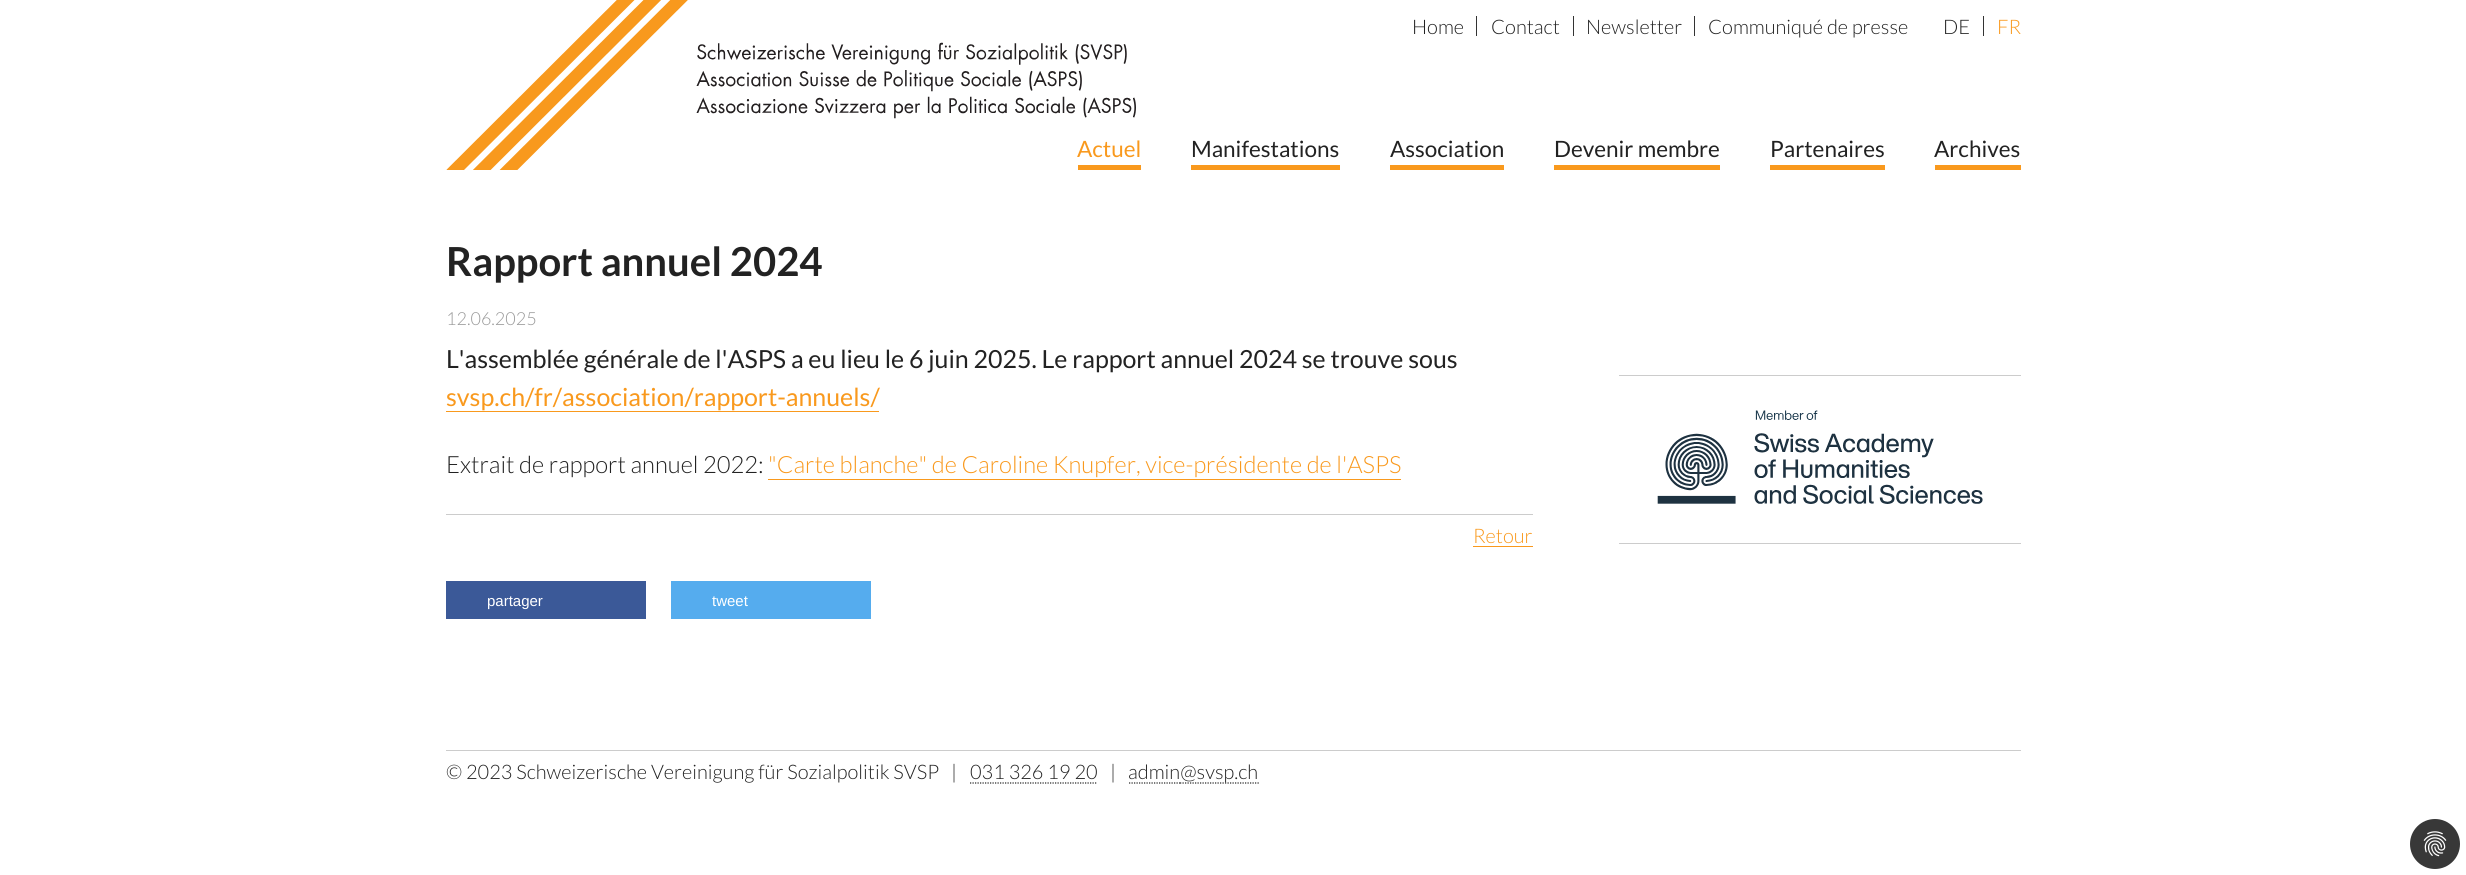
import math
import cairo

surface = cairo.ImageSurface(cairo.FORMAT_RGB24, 2466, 875)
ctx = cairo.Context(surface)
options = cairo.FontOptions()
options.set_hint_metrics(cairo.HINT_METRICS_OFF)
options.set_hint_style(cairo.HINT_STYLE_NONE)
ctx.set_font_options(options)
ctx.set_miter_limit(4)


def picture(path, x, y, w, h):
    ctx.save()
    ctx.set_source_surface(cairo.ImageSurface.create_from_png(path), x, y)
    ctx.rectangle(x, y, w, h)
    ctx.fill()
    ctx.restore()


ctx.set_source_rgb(1, 1, 1)
ctx.paint()
picture("img1.png", 446, 0, 690, 170)
ctx.set_source_rgb(0.2, 0.2, 0.2)
ctx.rectangle(1476, 16, 1, 20)
ctx.fill()
ctx.select_font_face("Lato Light")
ctx.set_font_size(20)
ctx.set_source_rgb(0.133, 0.133, 0.133)
ctx.move_to(1412, 34)
ctx.show_text("Home")
ctx.set_source_rgb(0.2, 0.2, 0.2)
ctx.rectangle(1573, 16, 1, 20)
ctx.fill()
ctx.set_source_rgb(0.133, 0.133, 0.133)
ctx.move_to(1491, 34)
ctx.show_text("Contact")
ctx.set_source_rgb(0.2, 0.2, 0.2)
ctx.rectangle(1694, 16, 1, 20)
ctx.fill()
ctx.set_source_rgb(0.133, 0.133, 0.133)
ctx.move_to(1586, 34)
ctx.show_text("Newsletter")
ctx.move_to(1708, 34)
ctx.show_text("Communiqué de presse")
ctx.set_source_rgb(0.2, 0.2, 0.2)
ctx.rectangle(1983, 16, 1, 20)
ctx.fill()
ctx.set_source_rgb(0.133, 0.133, 0.133)
ctx.move_to(1943, 34)
ctx.show_text("DE")
ctx.set_source_rgb(0.973, 0.6, 0.114)
ctx.move_to(1997, 34)
ctx.show_text("FR")
ctx.rectangle(1078, 165, 63, 5)
ctx.fill()
ctx.select_font_face("Lato")
ctx.set_font_size(22.5)
ctx.move_to(1077, 157)
ctx.show_text("Actuel")
ctx.rectangle(1191, 165, 149, 5)
ctx.fill()
ctx.set_source_rgb(0.133, 0.133, 0.133)
ctx.move_to(1191, 157)
ctx.show_text("Manifestations")
ctx.set_source_rgb(0.973, 0.6, 0.114)
ctx.rectangle(1390, 165, 114, 5)
ctx.fill()
ctx.set_source_rgb(0.133, 0.133, 0.133)
ctx.move_to(1390, 157)
ctx.show_text("Association")
ctx.set_source_rgb(0.973, 0.6, 0.114)
ctx.rectangle(1554, 165, 166, 5)
ctx.fill()
ctx.set_source_rgb(0.133, 0.133, 0.133)
ctx.move_to(1554, 157)
ctx.show_text("Devenir membre")
ctx.set_source_rgb(0.973, 0.6, 0.114)
ctx.rectangle(1770, 165, 115, 5)
ctx.fill()
ctx.set_source_rgb(0.133, 0.133, 0.133)
ctx.move_to(1770, 157)
ctx.show_text("Partenaires")
ctx.set_source_rgb(0.973, 0.6, 0.114)
ctx.rectangle(1935, 165, 86, 5)
ctx.fill()
ctx.set_source_rgb(0.133, 0.133, 0.133)
ctx.move_to(1934, 157)
ctx.show_text("Archives")
ctx.select_font_face("Lato", cairo.FONT_SLANT_NORMAL, cairo.FONT_WEIGHT_BOLD)
ctx.set_font_size(40)
ctx.move_to(446, 276)
ctx.show_text("Rapport annuel 2024")
ctx.select_font_face("Lato Light")
ctx.set_font_size(18)
ctx.set_source_rgb(0.6, 0.6, 0.6)
ctx.move_to(446, 325)
ctx.show_text("12.06.2025")
ctx.select_font_face("Lato")
ctx.set_font_size(24.95)
ctx.set_source_rgb(0.133, 0.133, 0.133)
ctx.move_to(446, 368)
ctx.show_text("L'assemblée générale de l'ASPS a eu lieu le 6 juin 2025. Le rapport annuel 2024 se trouve sous")
ctx.set_source_rgb(0.973, 0.6, 0.114)
ctx.move_to(446, 406)
ctx.show_text("svsp.ch/fr/association/rapport-annuels/")
ctx.rectangle(446, 411, 433, 1)
ctx.fill()
ctx.select_font_face("Lato Light")
ctx.set_font_size(23.75)
ctx.set_source_rgb(0.133, 0.133, 0.133)
ctx.move_to(446, 473)
ctx.show_text("Extrait de rapport annuel 2022:")
ctx.set_source_rgb(0.973, 0.6, 0.114)
ctx.move_to(768, 473)
ctx.show_text("\"Carte blanche\" de Caroline Knupfer, vice-présidente de l'ASPS")
ctx.rectangle(768, 479, 633, 1)
ctx.fill()
ctx.set_source_rgb(0.8, 0.8, 0.8)
ctx.rectangle(446, 514, 1087, 1)
ctx.fill()
ctx.set_font_size(20)
ctx.set_source_rgb(0.973, 0.6, 0.114)
ctx.move_to(1473, 543)
ctx.show_text("Retour")
ctx.rectangle(1473, 546, 60, 1)
ctx.fill()
ctx.set_source_rgb(0.231, 0.349, 0.596)
ctx.rectangle(446, 581, 200, 38)
ctx.fill()
ctx.select_font_face("Liberation Sans")
ctx.set_font_size(15)
ctx.set_source_rgb(1, 1, 1)
ctx.move_to(487, 606)
ctx.show_text("partager")
ctx.set_source_rgb(0.333, 0.675, 0.933)
ctx.rectangle(671, 581, 200, 38)
ctx.fill()
ctx.set_source_rgb(1, 1, 1)
ctx.move_to(712, 606)
ctx.show_text("tweet")
ctx.set_source_rgb(0.8, 0.8, 0.8)
ctx.rectangle(1619, 375, 402, 1)
ctx.fill()
ctx.rectangle(1619, 543, 402, 1)
ctx.fill()
picture("img2.png", 1657, 410, 326, 94)
ctx.rectangle(446, 750, 1575, 1)
ctx.fill()
ctx.select_font_face("Lato Light")
ctx.set_font_size(20)
ctx.set_source_rgb(0.133, 0.133, 0.133)
ctx.move_to(446, 779)
ctx.show_text("© 2023 Schweizerische Vereinigung für Sozialpolitik SVSP")
ctx.move_to(951, 779)
ctx.show_text("|")
ctx.move_to(970, 779)
ctx.show_text("031 326 19 20")
ctx.new_path()
ctx.move_to(970, 783)
ctx.line_to(1097.5, 783)
ctx.set_line_width(1.2)
ctx.set_dash([1.25, 1.25])
ctx.stroke()
ctx.move_to(1110, 779)
ctx.show_text("|")
ctx.new_path()
ctx.move_to(1129, 783)
ctx.line_to(1180, 783)
ctx.stroke()
ctx.new_path()
ctx.move_to(1180, 783)
ctx.line_to(1259, 783)
ctx.stroke()
ctx.move_to(1128, 779)
ctx.show_text("admin@svsp.ch")
ctx.set_source_rgb(0.22, 0.22, 0.22)
ctx.new_path()
ctx.arc(2435, 844, 25, 0, 2 * math.pi)
ctx.fill()
picture("img3.png", 2423, 831, 24, 26)
surface.write_to_png("page.png")
